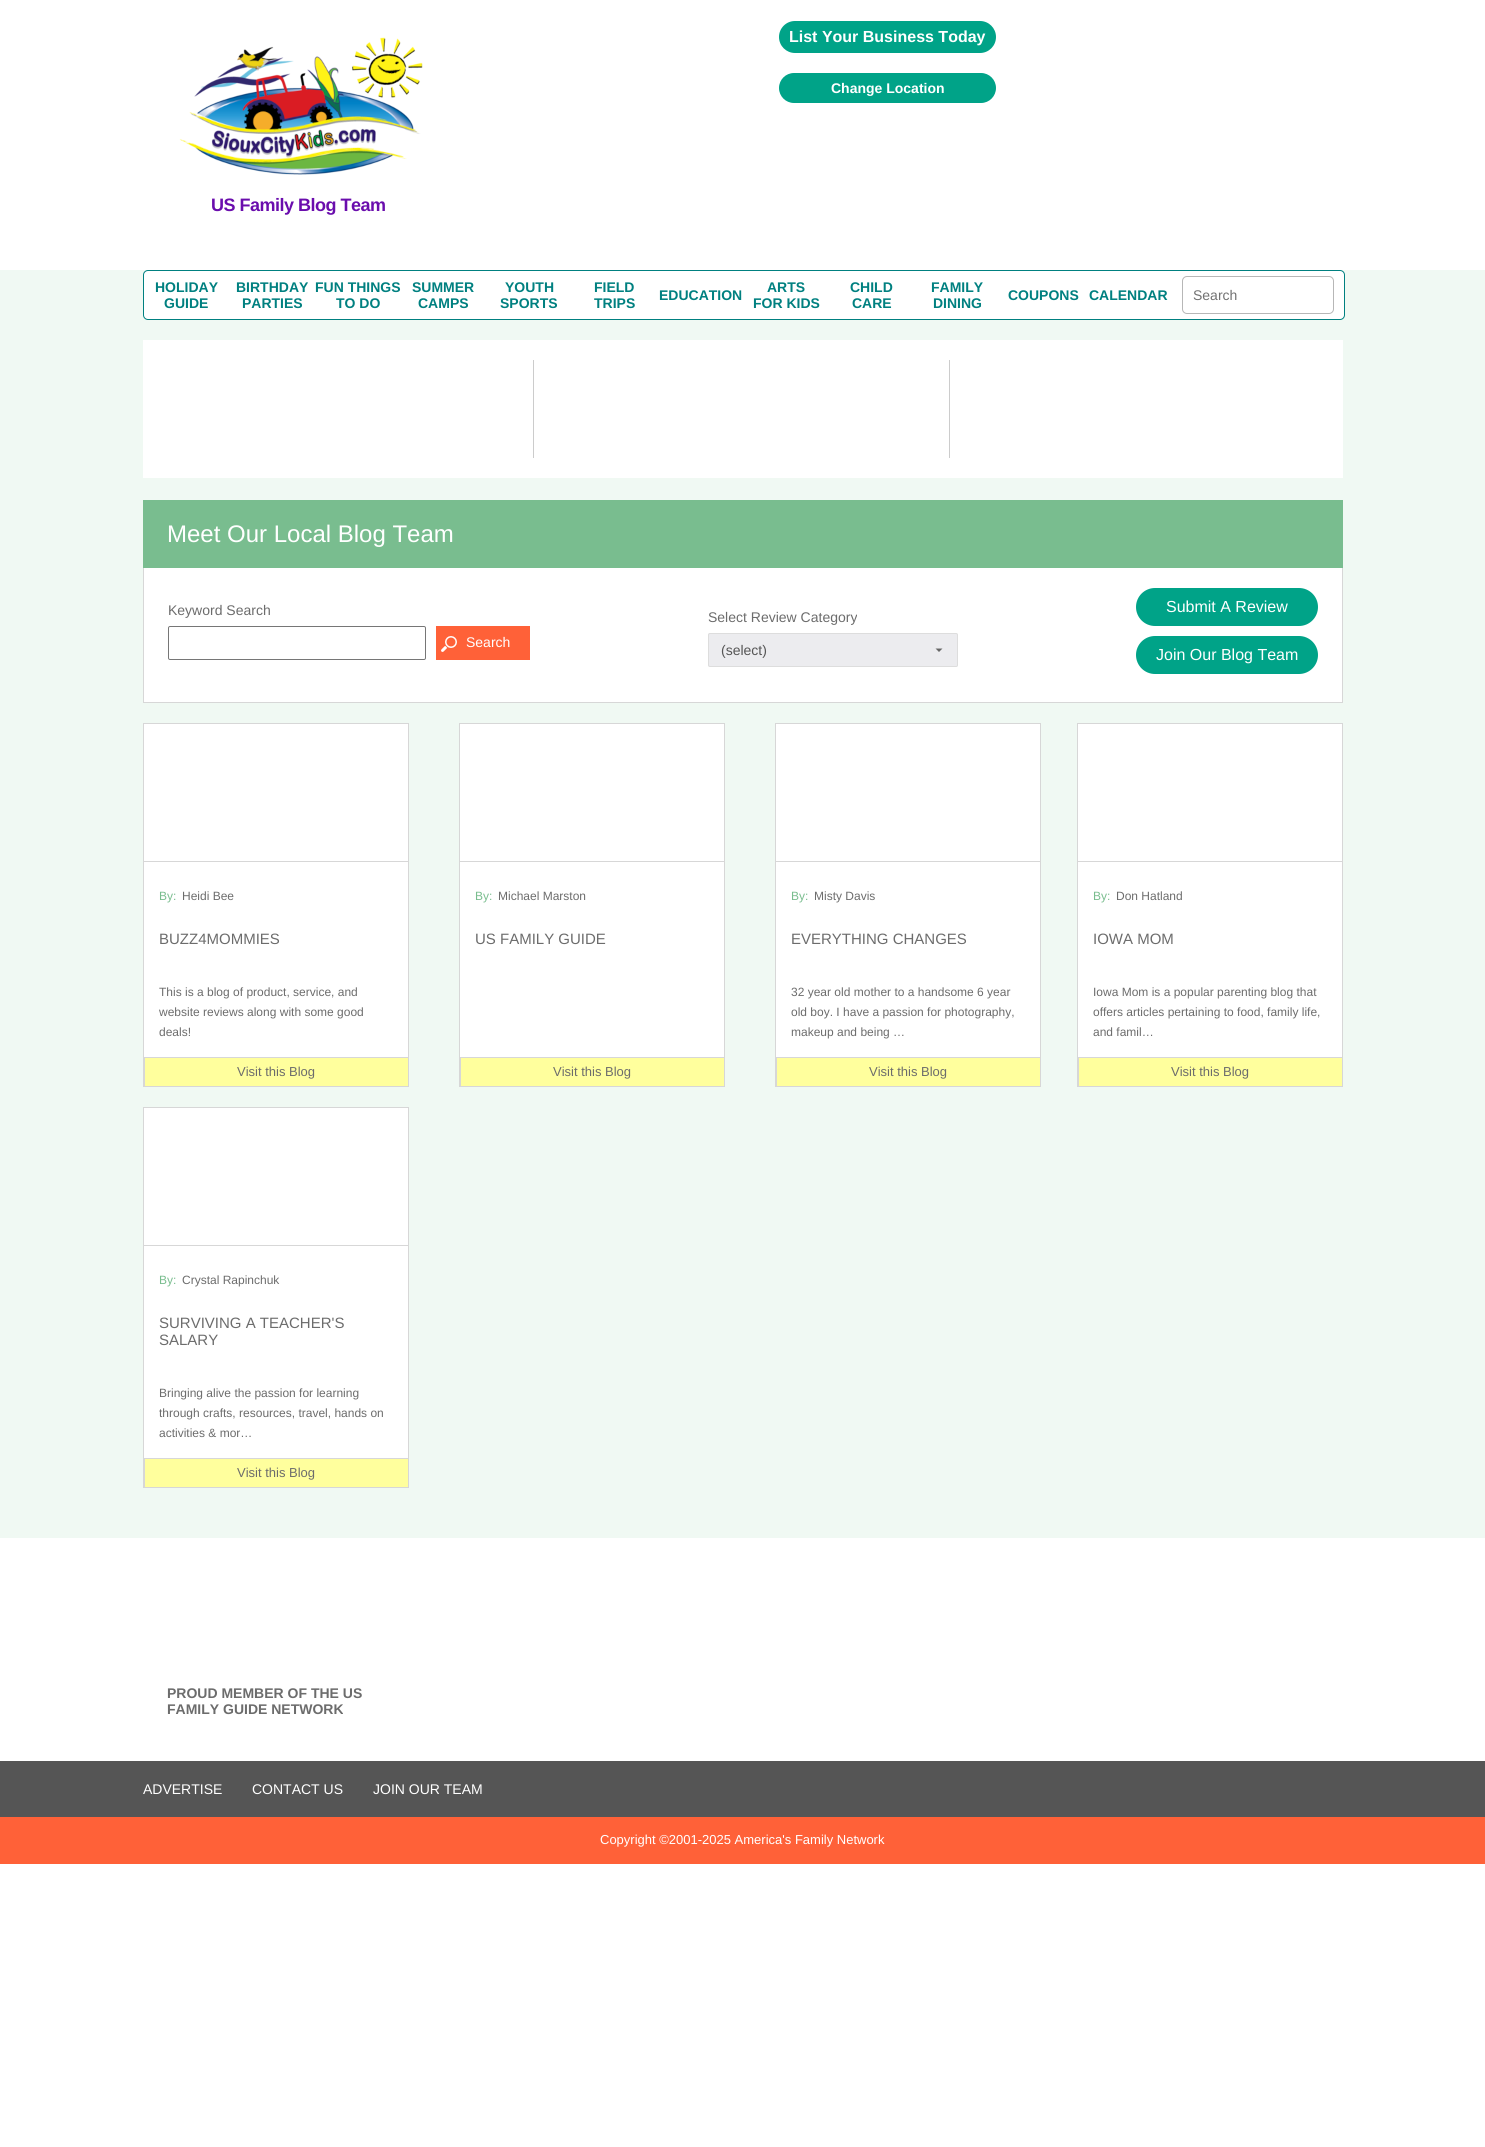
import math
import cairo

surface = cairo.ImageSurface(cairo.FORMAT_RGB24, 1485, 2147)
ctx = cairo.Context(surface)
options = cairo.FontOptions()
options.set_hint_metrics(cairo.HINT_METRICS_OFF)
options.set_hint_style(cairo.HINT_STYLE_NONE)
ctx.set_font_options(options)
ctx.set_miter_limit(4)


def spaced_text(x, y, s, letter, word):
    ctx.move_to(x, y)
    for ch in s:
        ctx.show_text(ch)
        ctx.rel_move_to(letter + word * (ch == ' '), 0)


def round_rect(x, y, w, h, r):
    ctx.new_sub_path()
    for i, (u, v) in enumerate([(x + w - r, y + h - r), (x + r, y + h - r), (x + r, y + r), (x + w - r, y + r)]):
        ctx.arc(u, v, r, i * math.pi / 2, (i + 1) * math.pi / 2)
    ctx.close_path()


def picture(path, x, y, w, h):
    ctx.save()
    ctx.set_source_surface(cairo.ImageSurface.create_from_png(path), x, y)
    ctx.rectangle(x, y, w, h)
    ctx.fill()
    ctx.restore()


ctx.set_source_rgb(1, 1, 1)
ctx.paint()
ctx.set_source_rgb(0, 0.639, 0.533)
round_rect(779, 21, 217, 32, 16)
ctx.fill()
ctx.select_font_face("Liberation Sans", cairo.FONT_SLANT_NORMAL, cairo.FONT_WEIGHT_BOLD)
ctx.set_font_size(16)
ctx.set_source_rgb(1, 1, 1)
ctx.move_to(789, 42)
ctx.show_text("List Your Business Today")
ctx.set_source_rgb(0, 0.639, 0.533)
round_rect(779, 73, 217, 30, 15)
ctx.fill()
ctx.set_font_size(14)
ctx.set_source_rgb(1, 1, 1)
ctx.move_to(831, 93)
ctx.show_text("Change Location")
picture("img1.png", 179, 37, 244, 138)
ctx.set_font_size(18)
ctx.set_source_rgb(0.416, 0.051, 0.678)
spaced_text(211, 211, "US Family Blog Team", -0.5, 0)
ctx.set_source_rgb(0.941, 0.973, 0.953)
ctx.rectangle(0, 270, 1485, 1268)
ctx.fill()
ctx.set_source_rgb(1, 0.38, 0.22)
ctx.rectangle(0, 1817, 1485, 47)
ctx.fill()
ctx.set_source_rgb(1, 1, 1)
round_rect(143.5, 270.5, 1201, 49, 4.5)
ctx.fill_preserve()
ctx.set_source_rgb(0, 0.502, 0.502)
ctx.set_line_width(1)
ctx.stroke()
ctx.set_font_size(14)
ctx.move_to(155, 292)
ctx.show_text("HOLIDAY")
ctx.move_to(164, 308)
ctx.show_text("GUIDE")
ctx.move_to(236, 292)
ctx.show_text("BIRTHDAY")
ctx.move_to(242, 308)
ctx.show_text("PARTIES")
ctx.move_to(315, 292)
ctx.show_text("FUN THINGS")
ctx.move_to(336, 308)
ctx.show_text("TO DO")
ctx.move_to(412, 292)
ctx.show_text("SUMMER")
ctx.move_to(418, 308)
ctx.show_text("CAMPS")
ctx.move_to(505, 292)
ctx.show_text("YOUTH")
ctx.move_to(500, 308)
ctx.show_text("SPORTS")
ctx.move_to(594, 292)
ctx.show_text("FIELD")
ctx.move_to(594, 308)
ctx.show_text("TRIPS")
ctx.move_to(659, 300)
ctx.show_text("EDUCATION")
ctx.move_to(767, 292)
ctx.show_text("ARTS")
ctx.move_to(753, 308)
ctx.show_text("FOR KIDS")
ctx.move_to(850, 292)
ctx.show_text("CHILD")
ctx.move_to(852, 308)
ctx.show_text("CARE")
ctx.move_to(931, 292)
ctx.show_text("FAMILY")
ctx.move_to(933, 308)
ctx.show_text("DINING")
ctx.move_to(1008, 300)
ctx.show_text("COUPONS")
ctx.move_to(1089, 300)
ctx.show_text("CALENDAR")
round_rect(1182.5, 276.5, 151, 37, 4.5)
ctx.set_source_rgb(0.718, 0.718, 0.718)
ctx.stroke()
ctx.select_font_face("Liberation Sans")
ctx.set_source_rgb(0.447, 0.447, 0.447)
ctx.move_to(1193, 300)
ctx.show_text("Search")
ctx.set_source_rgb(1, 1, 1)
ctx.rectangle(143, 340, 1200, 138)
ctx.fill()
ctx.set_source_rgb(0.8, 0.8, 0.8)
ctx.rectangle(533, 360, 1, 98)
ctx.fill()
ctx.rectangle(949, 360, 1, 98)
ctx.fill()
ctx.set_source_rgb(0.475, 0.741, 0.561)
ctx.rectangle(143, 500, 1200, 68)
ctx.fill()
ctx.set_font_size(24)
ctx.set_source_rgb(1, 1, 1)
ctx.move_to(167, 542)
ctx.show_text("Meet Our Local Blog Team")
ctx.rectangle(144, 568, 1198, 134)
ctx.fill()
ctx.set_source_rgb(0.843, 0.843, 0.843)
ctx.rectangle(1342, 568, 1, 135)
ctx.fill()
ctx.rectangle(143, 702, 1200, 1)
ctx.fill()
ctx.rectangle(143, 568, 1, 135)
ctx.fill()
ctx.set_font_size(14)
ctx.set_source_rgb(0.424, 0.424, 0.424)
ctx.move_to(168, 615)
ctx.show_text("Keyword Search")
round_rect(168.5, 626.5, 257, 33, 1.5)
ctx.set_source_rgb(0.463, 0.463, 0.463)
ctx.stroke()
ctx.set_source_rgb(1, 0.38, 0.22)
ctx.rectangle(436, 626, 94, 34)
ctx.fill()
picture("img2.png", 441, 636, 16, 16)
ctx.set_source_rgb(1, 1, 1)
ctx.move_to(466, 647)
ctx.show_text("Search")
ctx.set_source_rgb(0.424, 0.424, 0.424)
ctx.move_to(708, 622)
ctx.show_text("Select Review Category")
ctx.set_source_rgb(0.925, 0.925, 0.937)
round_rect(708, 633, 250, 34, 2)
ctx.fill()
ctx.set_source_rgb(0.4, 0.4, 0.4)
ctx.new_path()
ctx.move_to(935.5, 648.5)
ctx.line_to(939, 652)
ctx.line_to(942.5, 648.5)
ctx.close_path()
ctx.fill()
round_rect(708.5, 633.5, 249, 33, 1.5)
ctx.set_source_rgb(0.867, 0.867, 0.867)
ctx.stroke()
ctx.set_source_rgb(0.333, 0.333, 0.333)
ctx.move_to(721, 655)
ctx.show_text("(select)")
ctx.set_source_rgb(0, 0.639, 0.533)
round_rect(1136, 588, 182, 38, 19)
ctx.fill()
ctx.set_font_size(16)
ctx.set_source_rgb(1, 1, 1)
ctx.move_to(1166, 612)
ctx.show_text("Submit A Review")
ctx.set_source_rgb(0, 0.639, 0.533)
round_rect(1136, 636, 182, 38, 19)
ctx.fill()
ctx.set_source_rgb(1, 1, 1)
ctx.move_to(1156, 660)
ctx.show_text("Join Our Blog Team")
ctx.rectangle(144, 724, 264, 333)
ctx.fill()
ctx.rectangle(143.5, 723.5, 265, 363)
ctx.set_source_rgb(0.843, 0.843, 0.843)
ctx.stroke()
ctx.rectangle(144, 861, 264, 1)
ctx.fill()
ctx.set_font_size(12)
ctx.set_source_rgb(0.475, 0.741, 0.557)
ctx.move_to(159, 900)
ctx.show_text("By:")
ctx.set_source_rgb(0.424, 0.424, 0.424)
ctx.move_to(182, 900)
ctx.show_text("Heidi Bee")
ctx.set_font_size(15)
ctx.move_to(159, 944)
ctx.show_text("BUZZ4MOMMIES")
ctx.set_font_size(12)
ctx.move_to(159, 996)
ctx.show_text("This is a blog of product, service, and")
ctx.move_to(159, 1016)
ctx.show_text("website reviews along with some good")
ctx.move_to(159, 1036)
ctx.show_text("deals!")
ctx.set_source_rgb(1, 1, 0.616)
ctx.rectangle(145, 1058, 263, 28)
ctx.fill()
ctx.set_source_rgb(0.843, 0.843, 0.843)
ctx.rectangle(144, 1057, 265, 1)
ctx.fill()
ctx.rectangle(144, 1057, 1, 29)
ctx.fill()
ctx.set_font_size(13)
ctx.set_source_rgb(0.424, 0.424, 0.424)
ctx.move_to(237, 1076)
ctx.show_text("Visit this Blog")
ctx.set_source_rgb(1, 1, 1)
ctx.rectangle(460, 724, 264, 333)
ctx.fill()
ctx.rectangle(459.5, 723.5, 265, 363)
ctx.set_source_rgb(0.843, 0.843, 0.843)
ctx.stroke()
ctx.rectangle(460, 861, 264, 1)
ctx.fill()
ctx.set_font_size(12)
ctx.set_source_rgb(0.475, 0.741, 0.557)
ctx.move_to(475, 900)
ctx.show_text("By:")
ctx.set_source_rgb(0.424, 0.424, 0.424)
ctx.move_to(498, 900)
ctx.show_text("Michael Marston")
ctx.set_font_size(15)
ctx.move_to(475, 944)
ctx.show_text("US FAMILY GUIDE")
ctx.set_source_rgb(1, 1, 0.616)
ctx.rectangle(461, 1058, 263, 28)
ctx.fill()
ctx.set_source_rgb(0.843, 0.843, 0.843)
ctx.rectangle(460, 1057, 265, 1)
ctx.fill()
ctx.rectangle(460, 1057, 1, 29)
ctx.fill()
ctx.set_font_size(13)
ctx.set_source_rgb(0.424, 0.424, 0.424)
ctx.move_to(553, 1076)
ctx.show_text("Visit this Blog")
ctx.set_source_rgb(1, 1, 1)
ctx.rectangle(776, 724, 264, 333)
ctx.fill()
ctx.rectangle(775.5, 723.5, 265, 363)
ctx.set_source_rgb(0.843, 0.843, 0.843)
ctx.stroke()
ctx.rectangle(776, 861, 264, 1)
ctx.fill()
ctx.set_font_size(12)
ctx.set_source_rgb(0.475, 0.741, 0.557)
ctx.move_to(791, 900)
ctx.show_text("By:")
ctx.set_source_rgb(0.424, 0.424, 0.424)
ctx.move_to(814, 900)
ctx.show_text("Misty Davis")
ctx.set_font_size(15)
ctx.move_to(791, 944)
ctx.show_text("EVERYTHING CHANGES")
ctx.set_font_size(12)
ctx.move_to(791, 996)
ctx.show_text("32 year old mother to a handsome 6 year")
ctx.move_to(791, 1016)
ctx.show_text("old boy. I have a passion for photography,")
ctx.move_to(791, 1036)
ctx.show_text("makeup and being …")
ctx.set_source_rgb(1, 1, 0.616)
ctx.rectangle(777, 1058, 263, 28)
ctx.fill()
ctx.set_source_rgb(0.843, 0.843, 0.843)
ctx.rectangle(776, 1057, 265, 1)
ctx.fill()
ctx.rectangle(776, 1057, 1, 29)
ctx.fill()
ctx.set_font_size(13)
ctx.set_source_rgb(0.424, 0.424, 0.424)
ctx.move_to(869, 1076)
ctx.show_text("Visit this Blog")
ctx.set_source_rgb(1, 1, 1)
ctx.rectangle(1078, 724, 264, 333)
ctx.fill()
ctx.rectangle(1077.5, 723.5, 265, 363)
ctx.set_source_rgb(0.843, 0.843, 0.843)
ctx.stroke()
ctx.rectangle(1078, 861, 264, 1)
ctx.fill()
ctx.set_font_size(12)
ctx.set_source_rgb(0.475, 0.741, 0.557)
ctx.move_to(1093, 900)
ctx.show_text("By:")
ctx.set_source_rgb(0.424, 0.424, 0.424)
ctx.move_to(1116, 900)
ctx.show_text("Don Hatland")
ctx.set_font_size(15)
ctx.move_to(1093, 944)
ctx.show_text("IOWA MOM")
ctx.set_font_size(12)
ctx.move_to(1093, 996)
ctx.show_text("Iowa Mom is a popular parenting blog that")
ctx.move_to(1093, 1016)
ctx.show_text("offers articles pertaining to food, family life,")
ctx.move_to(1093, 1036)
ctx.show_text("and famil…")
ctx.set_source_rgb(1, 1, 0.616)
ctx.rectangle(1079, 1058, 263, 28)
ctx.fill()
ctx.set_source_rgb(0.843, 0.843, 0.843)
ctx.rectangle(1078, 1057, 265, 1)
ctx.fill()
ctx.rectangle(1078, 1057, 1, 29)
ctx.fill()
ctx.set_font_size(13)
ctx.set_source_rgb(0.424, 0.424, 0.424)
ctx.move_to(1171, 1076)
ctx.show_text("Visit this Blog")
ctx.set_source_rgb(1, 1, 1)
ctx.rectangle(144, 1108, 264, 350)
ctx.fill()
ctx.rectangle(143.5, 1107.5, 265, 380)
ctx.set_source_rgb(0.843, 0.843, 0.843)
ctx.stroke()
ctx.rectangle(144, 1245, 264, 1)
ctx.fill()
ctx.set_font_size(12)
ctx.set_source_rgb(0.475, 0.741, 0.557)
ctx.move_to(159, 1284)
ctx.show_text("By:")
ctx.set_source_rgb(0.424, 0.424, 0.424)
ctx.move_to(182, 1284)
ctx.show_text("Crystal Rapinchuk")
ctx.set_font_size(15)
ctx.move_to(159, 1328)
ctx.show_text("SURVIVING A TEACHER'S")
ctx.move_to(159, 1345)
ctx.show_text("SALARY")
ctx.set_font_size(12)
ctx.move_to(159, 1397)
ctx.show_text("Bringing alive the passion for learning")
ctx.move_to(159, 1417)
ctx.show_text("through crafts, resources, travel, hands on")
ctx.move_to(159, 1437)
ctx.show_text("activities & mor…")
ctx.set_source_rgb(1, 1, 0.616)
ctx.rectangle(145, 1459, 263, 28)
ctx.fill()
ctx.set_source_rgb(0.843, 0.843, 0.843)
ctx.rectangle(144, 1458, 265, 1)
ctx.fill()
ctx.rectangle(144, 1458, 1, 29)
ctx.fill()
ctx.set_font_size(13)
ctx.set_source_rgb(0.424, 0.424, 0.424)
ctx.move_to(237, 1477)
ctx.show_text("Visit this Blog")
ctx.select_font_face("Liberation Sans", cairo.FONT_SLANT_NORMAL, cairo.FONT_WEIGHT_BOLD)
ctx.set_font_size(14)
ctx.move_to(167, 1698)
ctx.show_text("PROUD MEMBER OF THE US")
ctx.move_to(167, 1714)
ctx.show_text("FAMILY GUIDE NETWORK")
ctx.set_source_rgb(0.333, 0.333, 0.333)
ctx.rectangle(0, 1761, 1485, 56)
ctx.fill()
ctx.select_font_face("Liberation Sans")
ctx.set_source_rgb(1, 1, 1)
ctx.move_to(143, 1794)
ctx.show_text("ADVERTISE")
ctx.move_to(252, 1794)
ctx.show_text("CONTACT US")
ctx.move_to(373, 1794)
ctx.show_text("JOIN OUR TEAM")
ctx.set_font_size(13)
ctx.move_to(600, 1844)
ctx.show_text("Copyright ©2001-2025 America's Family Network")
surface.write_to_png("page.png")
